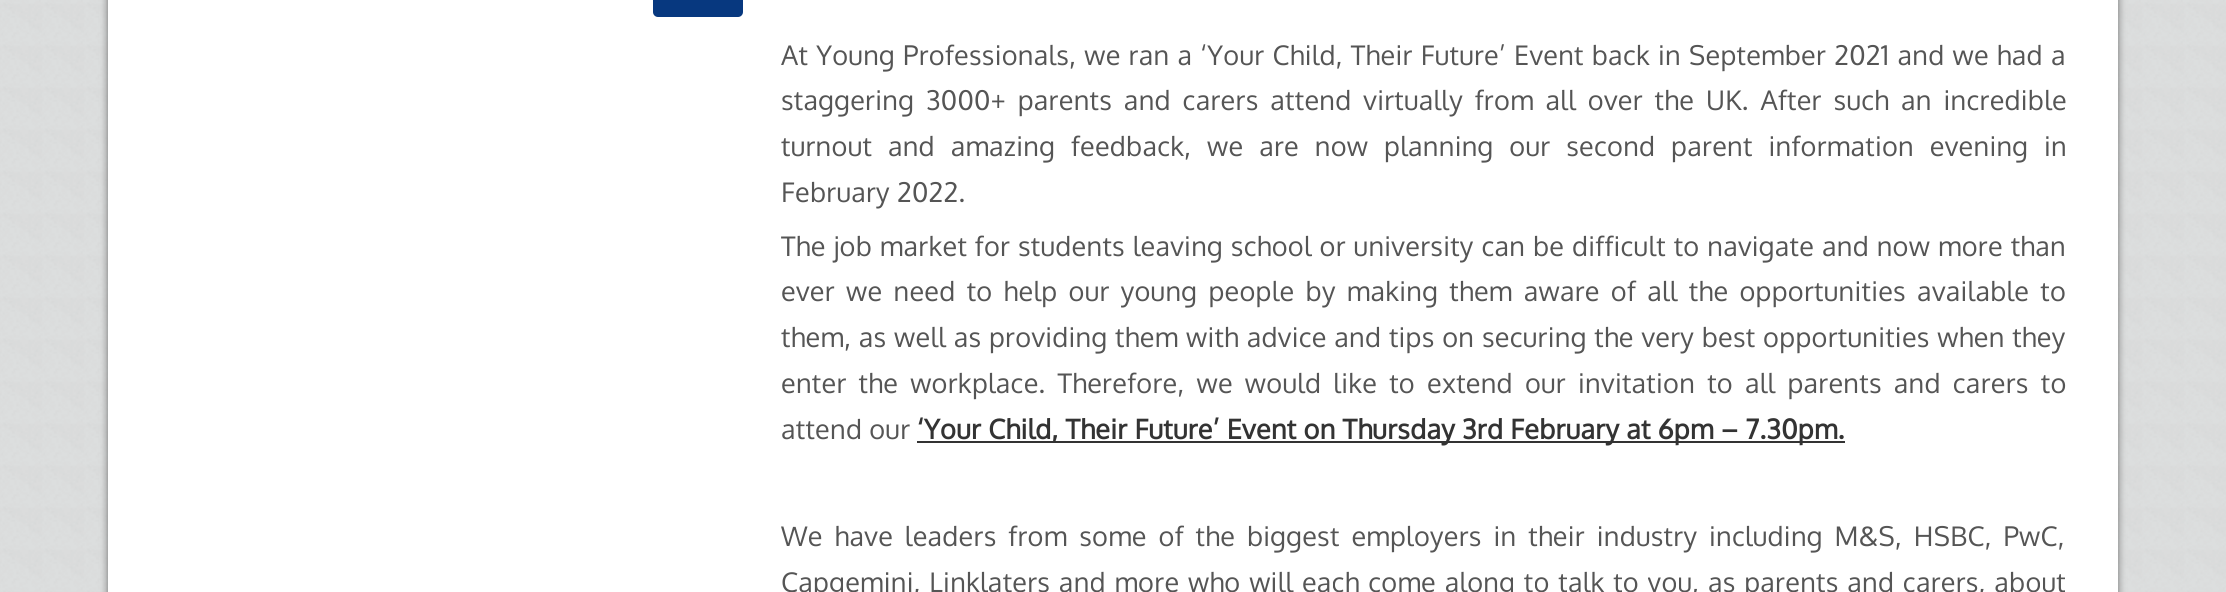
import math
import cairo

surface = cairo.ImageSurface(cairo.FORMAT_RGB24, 2226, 592)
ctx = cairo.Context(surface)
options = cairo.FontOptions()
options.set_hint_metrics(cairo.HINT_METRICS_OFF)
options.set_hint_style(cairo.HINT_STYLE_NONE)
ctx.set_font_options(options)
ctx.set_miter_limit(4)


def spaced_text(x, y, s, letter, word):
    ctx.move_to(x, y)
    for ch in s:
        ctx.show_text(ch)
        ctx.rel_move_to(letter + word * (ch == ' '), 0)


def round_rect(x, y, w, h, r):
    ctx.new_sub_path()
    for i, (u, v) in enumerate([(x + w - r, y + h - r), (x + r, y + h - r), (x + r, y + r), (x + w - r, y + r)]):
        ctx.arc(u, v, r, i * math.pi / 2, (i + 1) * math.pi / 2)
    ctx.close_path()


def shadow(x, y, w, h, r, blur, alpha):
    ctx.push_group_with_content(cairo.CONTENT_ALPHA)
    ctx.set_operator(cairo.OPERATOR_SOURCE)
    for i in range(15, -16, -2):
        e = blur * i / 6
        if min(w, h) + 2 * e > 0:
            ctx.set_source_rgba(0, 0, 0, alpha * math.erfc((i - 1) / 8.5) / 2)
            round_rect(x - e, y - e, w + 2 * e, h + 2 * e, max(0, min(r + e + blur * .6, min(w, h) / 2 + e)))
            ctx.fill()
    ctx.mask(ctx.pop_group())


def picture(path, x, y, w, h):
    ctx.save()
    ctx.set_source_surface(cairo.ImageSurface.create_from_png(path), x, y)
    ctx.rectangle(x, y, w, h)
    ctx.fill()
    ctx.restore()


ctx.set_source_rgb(1, 1, 1)
ctx.paint()
picture("img1.png", 0, 0, 2226, 592)
ctx.set_source_rgb(0, 0, 0)
shadow(108, -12, 2010, 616, 0, 4, 0.5)
ctx.set_source_rgb(1, 1, 1)
ctx.rectangle(108, 0, 2010, 592)
ctx.fill()
ctx.set_source_rgb(0.031, 0.22, 0.498)
round_rect(653, -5, 90, 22, 5)
ctx.fill()
ctx.select_font_face("Oxygen")
ctx.set_font_size(27)
ctx.set_source_rgb(0.333, 0.333, 0.333)
spaced_text(781, 65, "At Young Professionals, we ran a ‘Your Child, Their Future’ Event back in September 2021 and we had a", 0.3, 1)
spaced_text(781, 110, "staggering 3000+ parents and carers attend virtually from all over the UK. After such an incredible", 0.3, 4.75)
spaced_text(781, 156, "turnout and amazing feedback, we are now planning our second parent information evening in", 0.3, 8.75)
spaced_text(781, 202, "February 2022.", 0.3, 0)
spaced_text(781, 256, "The job market for students leaving school or university can be difficult to navigate and now more than", 0.3, 0.75)
spaced_text(781, 301, "ever we need to help our young people by making them aware of all the opportunities available to", 0.3, 4.1)
spaced_text(781, 347, "them, as well as providing them with advice and tips on securing the very best opportunities when they", 0.3, 0.6)
spaced_text(781, 393, "enter the workplace. Therefore, we would like to extend our invitation to all parents and carers to", 0.3, 5)
spaced_text(781, 439, "attend our", 0.3, 0)
ctx.set_source_rgb(0.2, 0.2, 0.2)
ctx.rectangle(917, 441, 928, 2)
ctx.fill()
ctx.select_font_face("Oxygen", cairo.FONT_SLANT_NORMAL, cairo.FONT_WEIGHT_BOLD)
spaced_text(917, 439, "‘Your Child, Their Future’ Event on Thursday 3rd February at 6pm – 7.30pm.", 0.3, 0)
ctx.select_font_face("Oxygen")
ctx.set_source_rgb(0.333, 0.333, 0.333)
spaced_text(781, 546, "We have leaders from some of the biggest employers in their industry including M&S, HSBC, PwC,", 0.3, 4.75)
spaced_text(781, 592, "Capgemini, Linklaters and more who will each come along to talk to you, as parents and carers, about", 0.3, 1.6)
surface.write_to_png("page.png")
